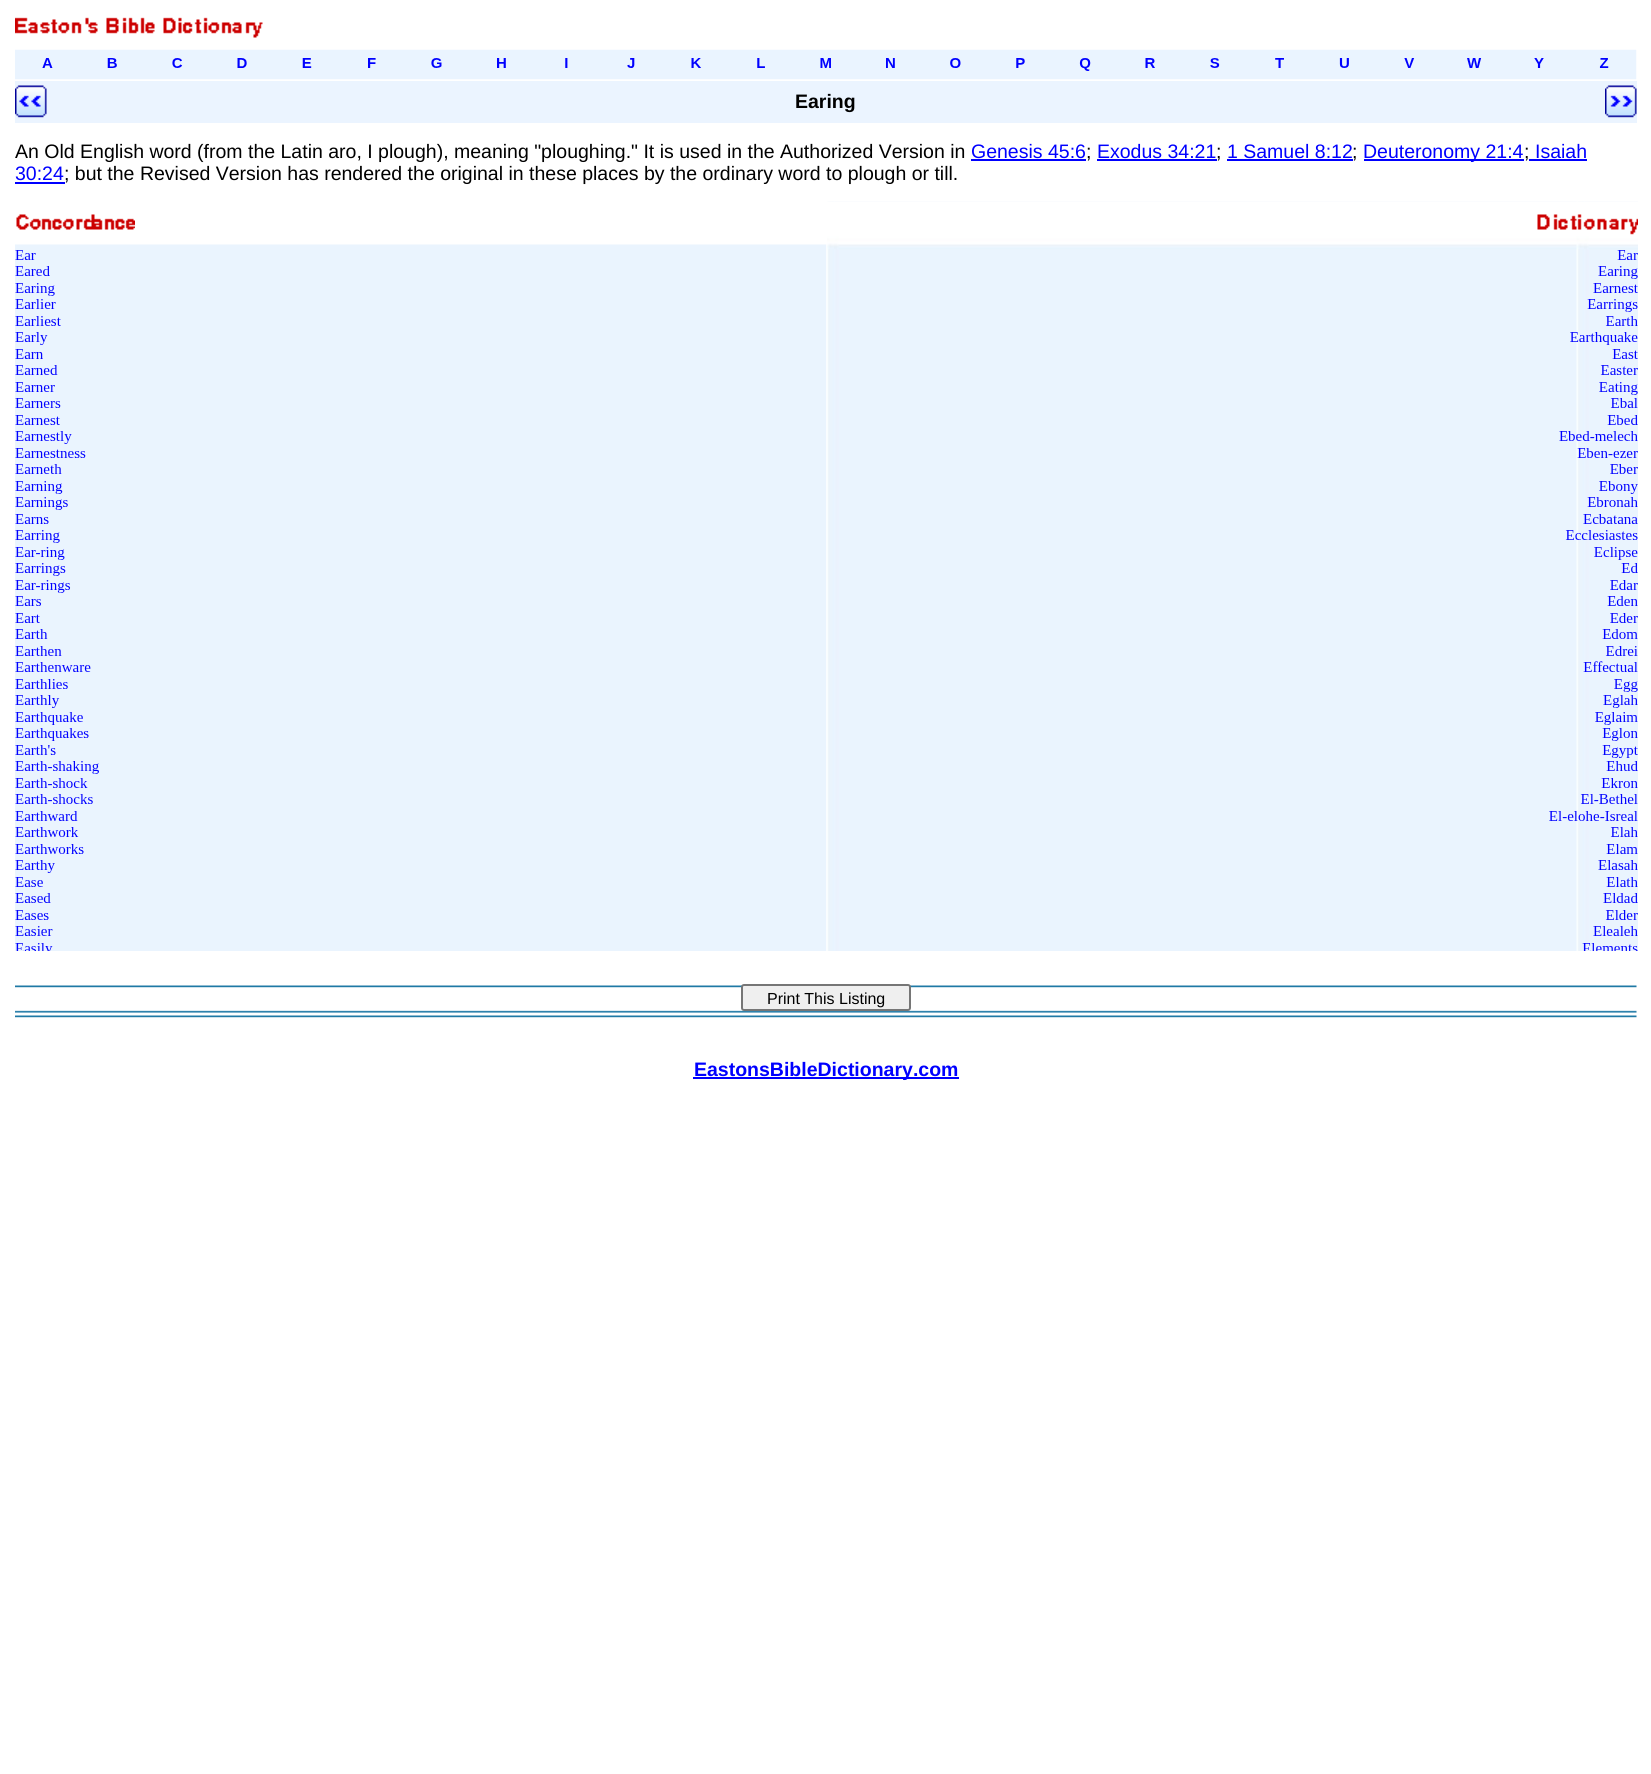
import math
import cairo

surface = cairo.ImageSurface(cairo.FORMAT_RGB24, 1651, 1774)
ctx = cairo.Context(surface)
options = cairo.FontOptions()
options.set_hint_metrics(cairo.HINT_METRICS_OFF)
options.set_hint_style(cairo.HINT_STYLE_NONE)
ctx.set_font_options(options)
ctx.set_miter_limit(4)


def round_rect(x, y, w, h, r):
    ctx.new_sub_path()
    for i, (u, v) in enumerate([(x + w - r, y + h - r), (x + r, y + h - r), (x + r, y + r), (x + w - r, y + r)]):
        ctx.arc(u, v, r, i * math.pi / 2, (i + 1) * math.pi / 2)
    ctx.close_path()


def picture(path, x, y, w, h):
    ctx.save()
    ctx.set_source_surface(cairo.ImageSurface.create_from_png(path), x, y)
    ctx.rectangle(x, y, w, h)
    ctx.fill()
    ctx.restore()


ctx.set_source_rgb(1, 1, 1)
ctx.paint()
picture("img1.png", 15, 17, 248, 21)
picture("img2.png", 15, 49, 1622, 31)
ctx.set_source_rgb(0.918, 0.957, 1)
ctx.rectangle(15, 81, 1622, 42)
ctx.fill()
picture("img3.png", 15, 85, 32, 33)
ctx.select_font_face("Liberation Sans", cairo.FONT_SLANT_NORMAL, cairo.FONT_WEIGHT_BOLD)
ctx.set_font_size(19.5)
ctx.set_source_rgb(0, 0, 0)
ctx.move_to(795, 108)
ctx.show_text("Earing")
picture("img4.png", 1605, 85, 32, 33)
ctx.select_font_face("Liberation Sans")
ctx.move_to(15, 158)
ctx.show_text("An Old English word (from the Latin aro, I plough), meaning \"ploughing.\" It is used in the Authorized Version in")
ctx.set_source_rgb(0, 0, 1)
ctx.move_to(971, 158)
ctx.show_text("Genesis 45:6")
ctx.rectangle(971, 159, 115, 2)
ctx.fill()
ctx.set_source_rgb(0, 0, 0)
ctx.move_to(1086, 158)
ctx.show_text(";")
ctx.set_source_rgb(0, 0, 1)
ctx.move_to(1097, 158)
ctx.show_text("Exodus 34:21")
ctx.rectangle(1097, 159, 120, 2)
ctx.fill()
ctx.set_source_rgb(0, 0, 0)
ctx.move_to(1216, 158)
ctx.show_text(";")
ctx.set_source_rgb(0, 0, 1)
ctx.move_to(1227, 158)
ctx.show_text("1 Samuel 8:12")
ctx.rectangle(1227, 159, 126, 2)
ctx.fill()
ctx.set_source_rgb(0, 0, 0)
ctx.move_to(1352, 158)
ctx.show_text(";")
ctx.set_source_rgb(0, 0, 1)
ctx.rectangle(1364, 159, 160, 2)
ctx.fill()
ctx.move_to(1363, 158)
ctx.show_text("Deuteronomy 21:4")
ctx.set_source_rgb(0, 0, 0)
ctx.move_to(1524, 158)
ctx.show_text(";")
ctx.set_source_rgb(0, 0, 1)
ctx.move_to(1535, 158)
ctx.show_text("Isaiah")
ctx.rectangle(1529, 159, 58, 2)
ctx.fill()
ctx.move_to(15, 180)
ctx.show_text("30:24")
ctx.rectangle(15, 182, 50, 2)
ctx.fill()
ctx.set_source_rgb(0, 0, 0)
ctx.move_to(64, 180)
ctx.show_text("; but the Revised Version has rendered the original in these places by the ordinary word to plough or till.")
picture("img5.png", 15, 214, 812, 737)
picture("img6.png", 827, 201, 811, 750)
picture("img7.png", 15, 985, 1622, 33)
ctx.set_source_rgb(0.937, 0.937, 0.937)
round_rect(742, 985, 168, 25, 2)
ctx.fill_preserve()
ctx.set_source_rgb(0.463, 0.463, 0.463)
ctx.stroke()
ctx.set_font_size(16)
ctx.set_source_rgb(0, 0, 0)
ctx.move_to(767, 1004)
ctx.show_text("Print This Listing")
ctx.set_source_rgb(0, 0, 1)
ctx.rectangle(693, 1077, 266, 2)
ctx.fill()
ctx.select_font_face("Liberation Sans", cairo.FONT_SLANT_NORMAL, cairo.FONT_WEIGHT_BOLD)
ctx.set_font_size(19.5)
ctx.move_to(694, 1076)
ctx.show_text("EastonsBibleDictionary.com")
surface.write_to_png("page.png")
